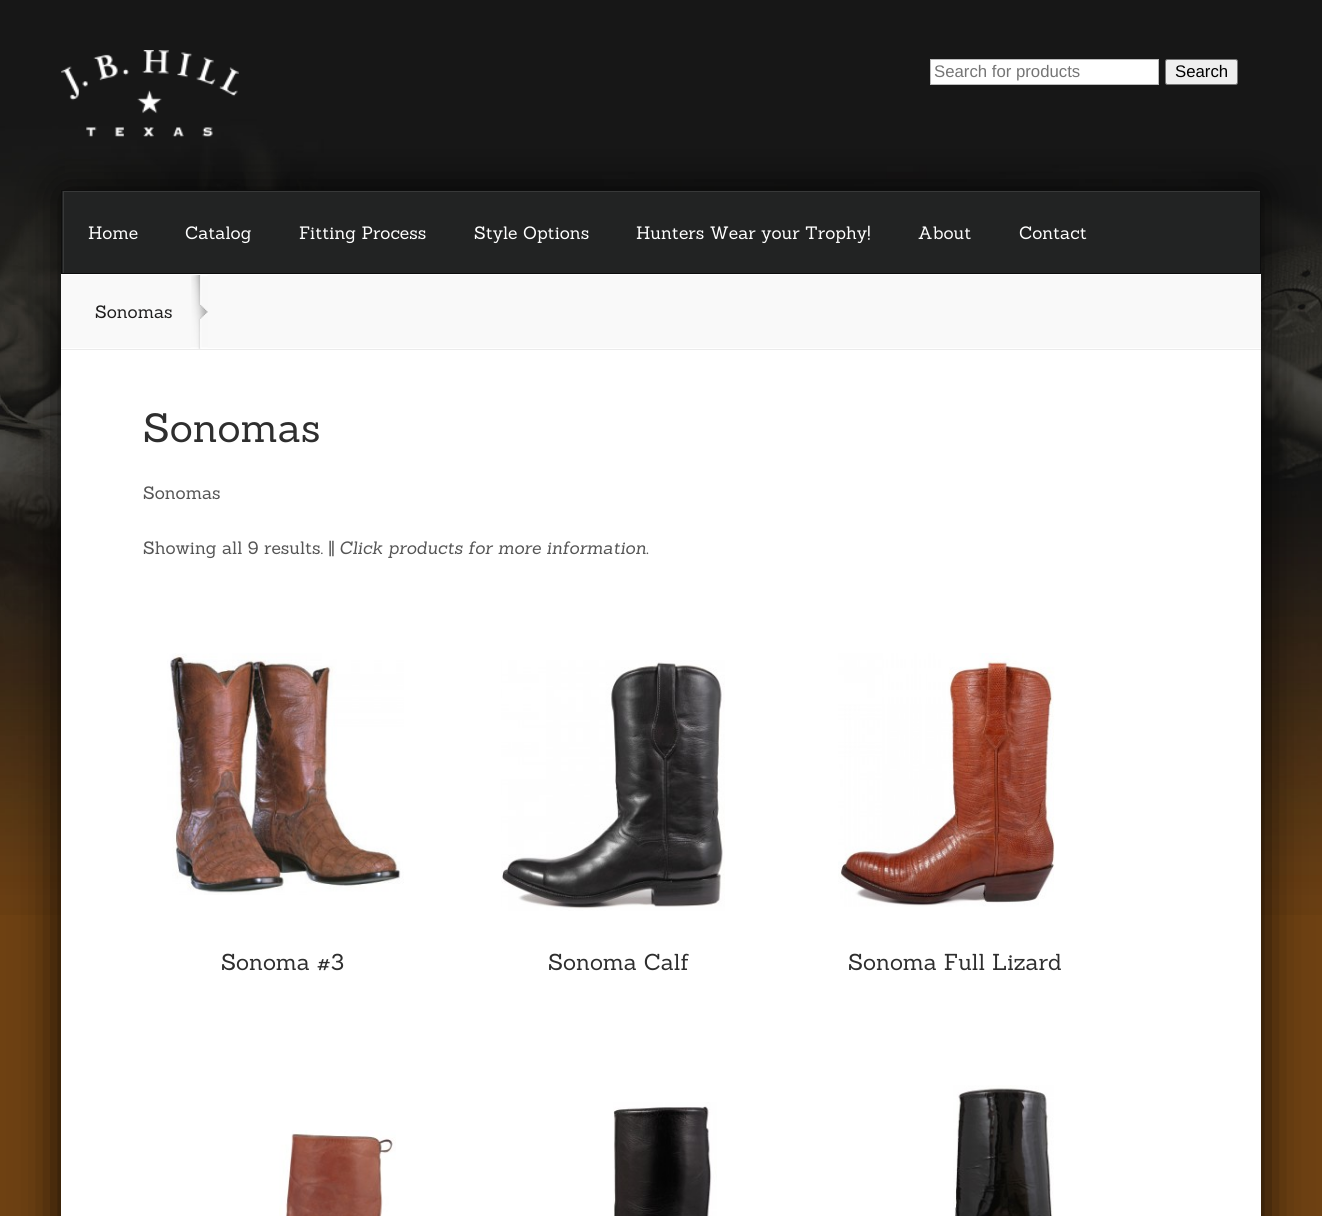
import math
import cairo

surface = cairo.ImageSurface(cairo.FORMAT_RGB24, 1322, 1216)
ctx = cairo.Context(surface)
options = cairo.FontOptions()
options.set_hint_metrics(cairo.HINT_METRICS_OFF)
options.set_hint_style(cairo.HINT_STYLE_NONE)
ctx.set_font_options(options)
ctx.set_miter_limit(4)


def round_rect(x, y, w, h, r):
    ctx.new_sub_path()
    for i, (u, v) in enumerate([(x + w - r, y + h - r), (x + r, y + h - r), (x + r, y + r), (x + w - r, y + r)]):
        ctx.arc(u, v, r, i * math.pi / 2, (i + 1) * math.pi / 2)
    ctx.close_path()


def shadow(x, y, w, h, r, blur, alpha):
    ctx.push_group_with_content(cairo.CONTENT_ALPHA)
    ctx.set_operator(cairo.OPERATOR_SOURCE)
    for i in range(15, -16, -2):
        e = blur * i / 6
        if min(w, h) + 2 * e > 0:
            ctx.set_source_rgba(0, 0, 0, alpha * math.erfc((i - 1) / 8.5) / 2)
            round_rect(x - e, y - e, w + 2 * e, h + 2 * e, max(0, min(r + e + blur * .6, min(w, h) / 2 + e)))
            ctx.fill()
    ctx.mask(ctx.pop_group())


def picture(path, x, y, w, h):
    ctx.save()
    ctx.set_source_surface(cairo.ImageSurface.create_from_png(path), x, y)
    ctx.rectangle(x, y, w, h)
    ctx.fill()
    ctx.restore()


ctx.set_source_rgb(0.431, 0.255, 0.071)
ctx.paint()
picture("img1.png", 0, 0, 1322, 915)
ctx.set_source_rgb(0, 0, 0)
shadow(61, 190, 1200, 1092, 0, 22, 0.9)
picture("img2.png", 61, 50, 178, 87)
ctx.set_source_rgb(1, 1, 1)
ctx.rectangle(930.5, 59.5, 228, 25)
ctx.fill_preserve()
ctx.set_source_rgb(0.733, 0.733, 0.733)
ctx.set_line_width(1)
ctx.stroke()
ctx.select_font_face("Liberation Sans")
ctx.set_font_size(16.75)
ctx.set_source_rgb(0.459, 0.459, 0.459)
ctx.move_to(934, 77)
ctx.show_text("Search for products")
ctx.set_source_rgb(0.937, 0.937, 0.937)
round_rect(1165.5, 59.5, 72, 25, 2)
ctx.fill_preserve()
ctx.set_source_rgb(0.463, 0.463, 0.463)
ctx.stroke()
ctx.set_source_rgb(0, 0, 0)
ctx.move_to(1175, 77)
ctx.show_text("Search")
ctx.set_source_rgb(1, 1, 1)
ctx.rectangle(61, 350, 1200, 866)
ctx.fill()
ctx.set_source_rgb(0.133, 0.137, 0.137)
ctx.rectangle(62, 191, 1198, 82)
ctx.fill()
ctx.save()
ctx.rectangle(63, 191, 1197, 82)
ctx.clip()
ctx.set_source_rgb(0.22, 0.224, 0.224)
ctx.set_fill_rule(cairo.FILL_RULE_EVEN_ODD)
ctx.new_path()
ctx.move_to(-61, 68)
ctx.line_to(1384, 68)
ctx.line_to(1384, 396)
ctx.line_to(-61, 396)
ctx.close_path()
ctx.move_to(64, 192)
ctx.line_to(1261, 192)
ctx.line_to(1261, 274)
ctx.line_to(64, 274)
ctx.close_path()
ctx.fill()
ctx.restore()
ctx.rectangle(61.5, 190.5, 1199, 83)
ctx.set_source_rgb(0.051, 0.051, 0.051)
ctx.stroke()
ctx.select_font_face("Sanchez")
ctx.set_font_size(17.5)
ctx.set_source_rgb(1, 1, 1)
ctx.move_to(88, 239)
ctx.show_text("Home")
ctx.move_to(185, 239)
ctx.show_text("Catalog")
ctx.move_to(299, 239)
ctx.show_text("Fitting Process")
ctx.move_to(474, 239)
ctx.show_text("Style Options")
ctx.move_to(636, 239)
ctx.show_text("Hunters Wear your Trophy!")
ctx.move_to(918, 239)
ctx.show_text("About")
ctx.move_to(1019, 239)
ctx.show_text("Contact")
ctx.set_source_rgb(0.973, 0.973, 0.973)
ctx.rectangle(61, 275, 1200, 73)
ctx.fill()
ctx.set_source_rgb(1, 1, 1)
ctx.rectangle(61, 274, 1200, 1)
ctx.fill()
ctx.rectangle(61, 348, 1200, 1)
ctx.fill()
ctx.set_source_rgb(0.918, 0.918, 0.918)
ctx.rectangle(61, 349, 1200, 1)
ctx.fill()
ctx.set_source_rgb(0.122, 0.118, 0.118)
ctx.move_to(95, 318)
ctx.show_text("Sonomas")
picture("img3.png", 191, 275, 17, 74)
ctx.set_font_size(40)
ctx.set_source_rgb(0.18, 0.18, 0.18)
ctx.move_to(143, 442)
ctx.show_text("Sonomas")
ctx.set_font_size(17.5)
ctx.set_source_rgb(0.333, 0.333, 0.333)
ctx.move_to(143, 499)
ctx.show_text("Sonomas")
ctx.move_to(143, 554)
ctx.show_text("Showing all 9 results. ||")
ctx.select_font_face("Sanchez", cairo.FONT_SLANT_ITALIC)
ctx.move_to(339, 554)
ctx.show_text("Click products for more information.")
picture("img4.png", 167, 653, 237, 242)
ctx.select_font_face("Sanchez")
ctx.set_font_size(22.5)
ctx.set_source_rgb(0.18, 0.18, 0.18)
ctx.move_to(221, 970)
ctx.show_text("Sonoma #3")
picture("img5.png", 501, 660, 224, 251)
ctx.move_to(548, 970)
ctx.show_text("Sonoma Calf")
picture("img6.png", 838, 653, 217, 254)
ctx.move_to(848, 970)
ctx.show_text("Sonoma Full Lizard")
picture("img7.png", 279, 1130, 117, 86)
picture("img8.png", 613, 1102, 104, 114)
picture("img9.png", 953, 1085, 101, 131)
surface.write_to_png("page.png")
